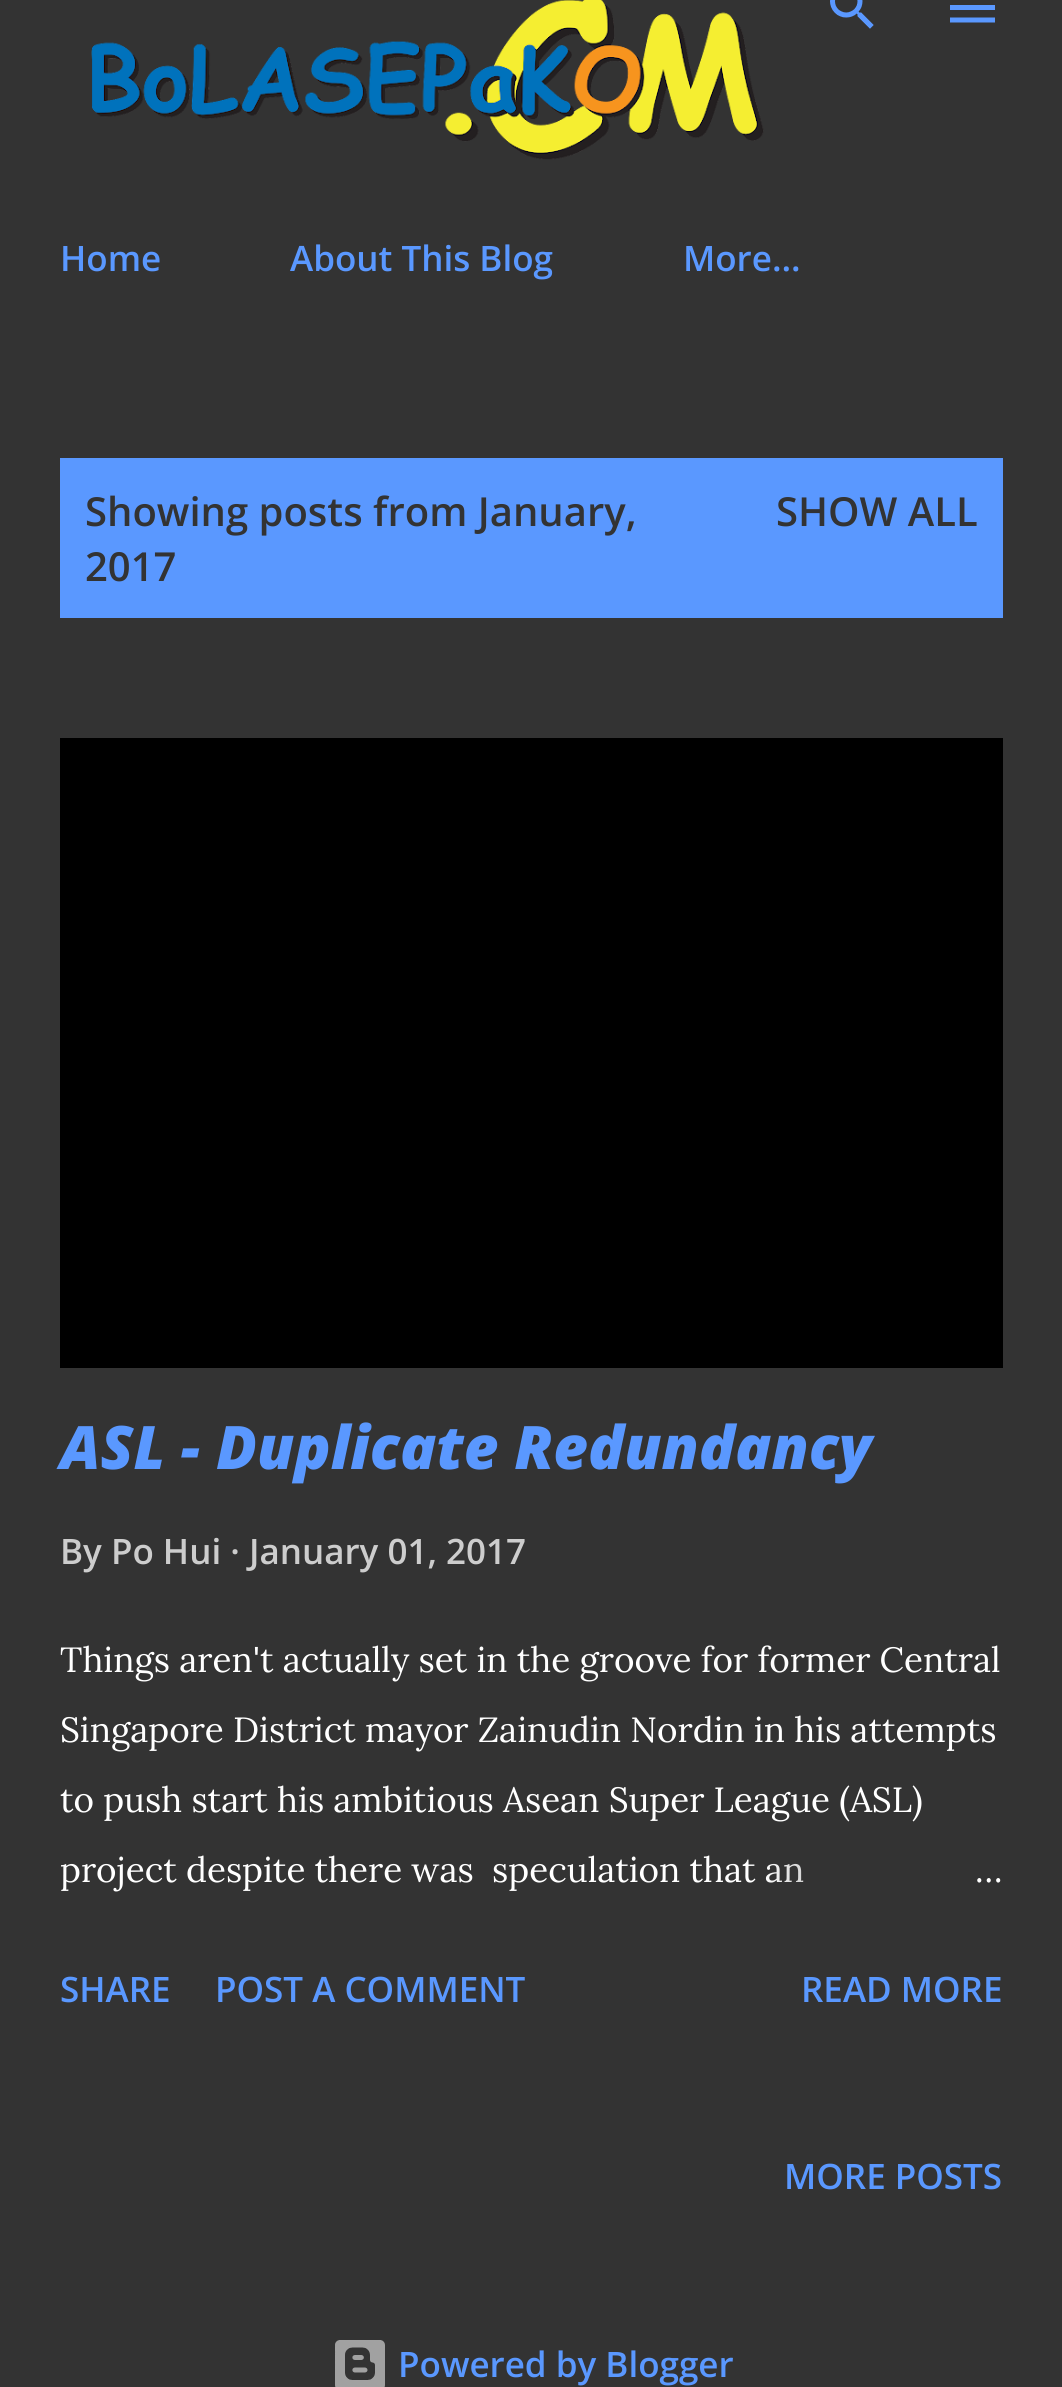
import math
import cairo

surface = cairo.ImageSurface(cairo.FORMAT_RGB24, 1062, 2387)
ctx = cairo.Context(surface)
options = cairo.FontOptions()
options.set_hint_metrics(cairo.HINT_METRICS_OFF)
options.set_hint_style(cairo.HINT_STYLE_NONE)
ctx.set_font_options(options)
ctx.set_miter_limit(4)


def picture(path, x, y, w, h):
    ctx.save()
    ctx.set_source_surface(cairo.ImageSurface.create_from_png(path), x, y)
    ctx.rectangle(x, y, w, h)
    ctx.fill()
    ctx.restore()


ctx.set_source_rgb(0.2, 0.2, 0.2)
ctx.paint()
picture("img1.png", 91, 0, 673, 160)
picture("img2.png", 830, 0, 44, 29)
picture("img3.png", 950, 5, 45, 18)
ctx.select_font_face("Open Sans SemiBold")
ctx.set_font_size(35)
ctx.set_source_rgb(0.353, 0.596, 1)
ctx.move_to(60, 271)
ctx.show_text("Home")
ctx.move_to(290, 271)
ctx.show_text("About This Blog")
ctx.move_to(683, 271)
ctx.show_text("More…")
ctx.rectangle(60, 458, 943, 160)
ctx.fill()
ctx.set_font_size(40)
ctx.set_source_rgb(0.2, 0.2, 0.2)
ctx.move_to(85, 526)
ctx.show_text("Showing posts from January,")
ctx.move_to(85, 581)
ctx.show_text("2017")
ctx.move_to(776, 526)
ctx.show_text("SHOW ALL")
ctx.set_source_rgb(0, 0, 0)
ctx.rectangle(60, 738, 943, 630)
ctx.fill()
ctx.select_font_face("Open Sans ExtraBold", cairo.FONT_SLANT_ITALIC)
ctx.set_font_size(60)
ctx.set_source_rgb(0.353, 0.596, 1)
ctx.move_to(60, 1469)
ctx.show_text("ASL - Duplicate Redundancy")
ctx.select_font_face("Open Sans SemiBold")
ctx.set_font_size(35)
ctx.set_source_rgb(0.804, 0.804, 0.804)
ctx.move_to(60, 1564)
ctx.show_text("By Po Hui · January 01, 2017")
ctx.select_font_face("Lora")
ctx.set_source_rgb(1, 1, 1)
ctx.move_to(60, 1672)
ctx.show_text("Things aren't actually set in the groove for former Central")
ctx.move_to(60, 1742)
ctx.show_text("Singapore District mayor Zainudin Nordin in his attempts")
ctx.move_to(60, 1812)
ctx.show_text("to push start his ambitious Asean Super League (ASL)")
ctx.move_to(60, 1882)
ctx.show_text("project despite there was  speculation that an")
gradient = cairo.LinearGradient(1003, 1870, 763, 1870)
gradient.add_color_stop_rgba(0, 0.2, 0.2, 0.2, 1)
gradient.add_color_stop_rgba(0.2, 0.2, 0.2, 0.2, 1)
gradient.add_color_stop_rgba(1, 0.2, 0.2, 0.2, 0)
ctx.set_source(gradient)
ctx.rectangle(767, 1864, 37, 19)
ctx.fill()
ctx.set_source_rgb(1, 1, 1)
ctx.move_to(975, 1882)
ctx.show_text("…")
ctx.select_font_face("Open Sans SemiBold")
ctx.set_source_rgb(0.353, 0.596, 1)
ctx.move_to(60, 2002)
ctx.show_text("SHARE")
ctx.move_to(215, 2002)
ctx.show_text("POST A COMMENT")
ctx.move_to(801, 2002)
ctx.show_text("READ MORE")
ctx.move_to(784, 2189)
ctx.show_text("MORE POSTS")
picture("img4.png", 335, 2340, 50, 47)
ctx.move_to(398, 2377)
ctx.show_text("Powered by Blogger")
surface.write_to_png("page.png")
